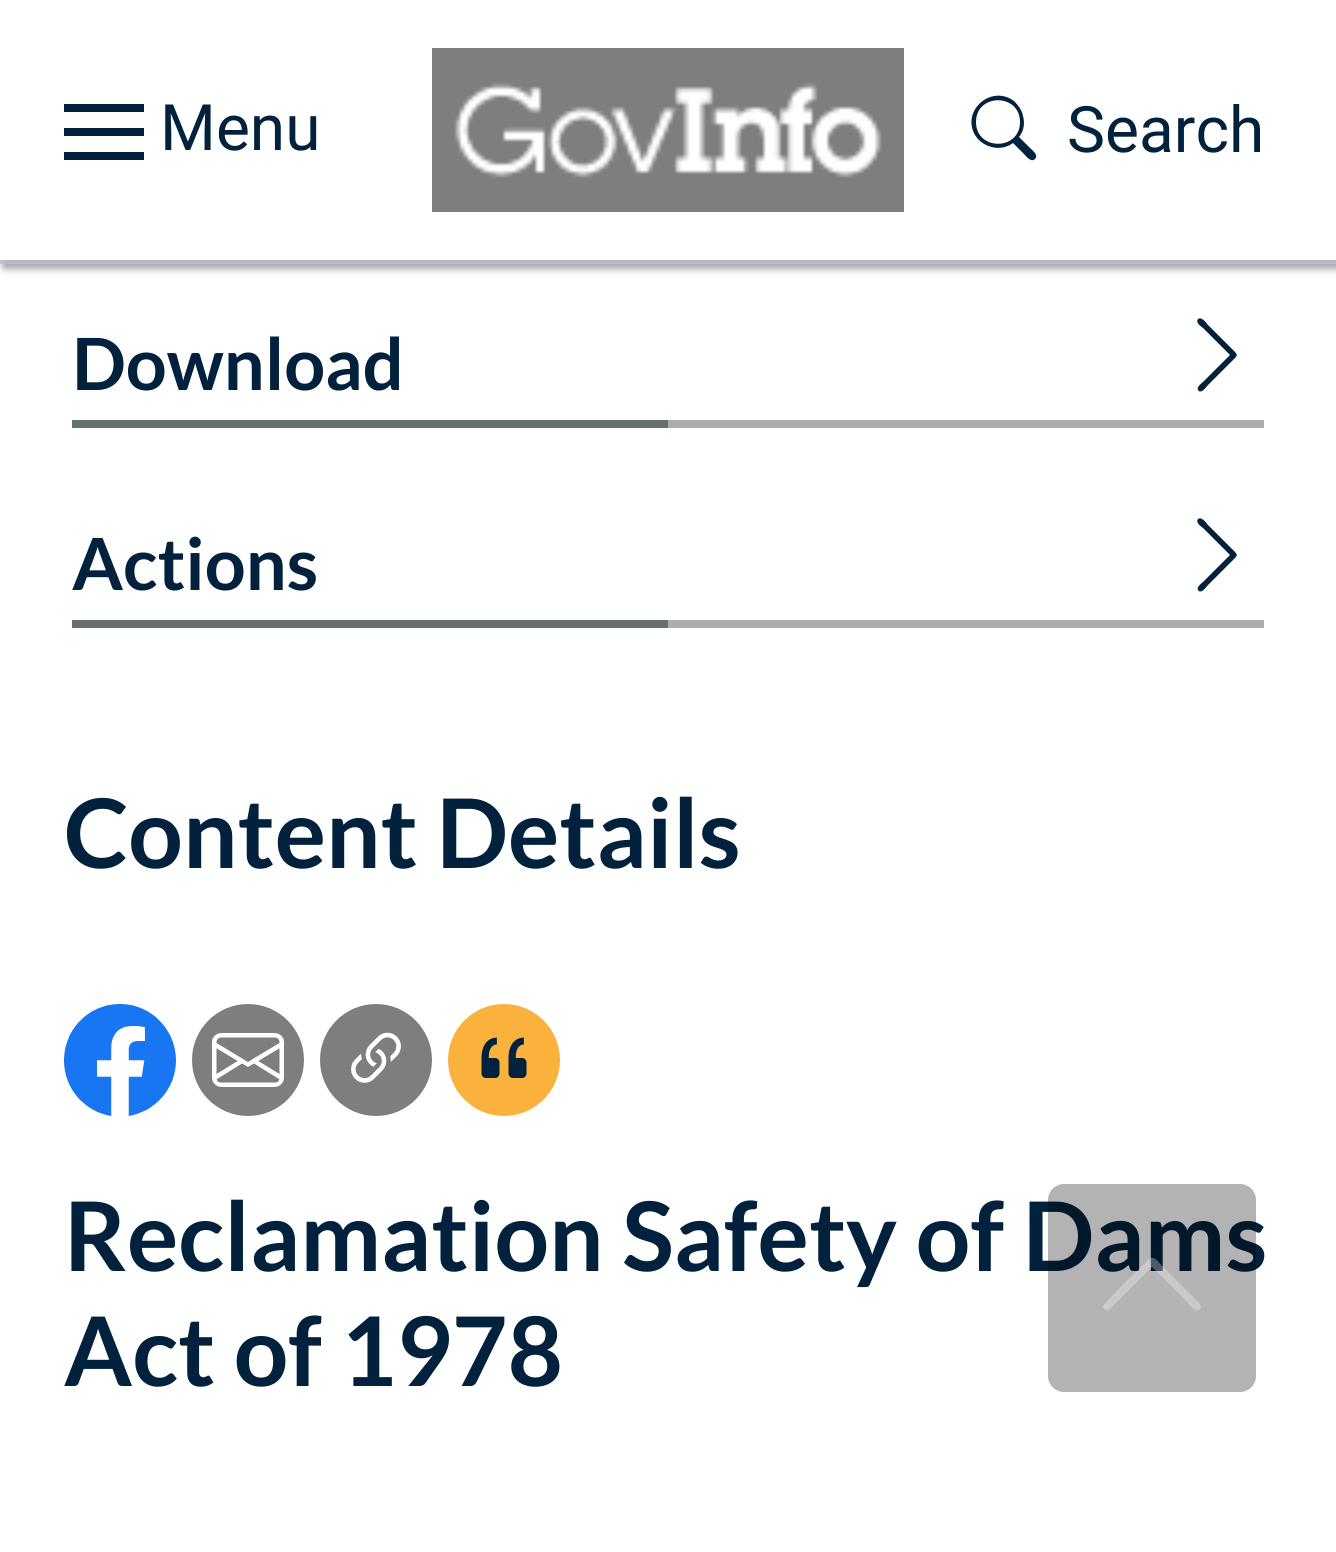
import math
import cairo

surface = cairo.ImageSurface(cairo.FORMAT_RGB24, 1336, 1552)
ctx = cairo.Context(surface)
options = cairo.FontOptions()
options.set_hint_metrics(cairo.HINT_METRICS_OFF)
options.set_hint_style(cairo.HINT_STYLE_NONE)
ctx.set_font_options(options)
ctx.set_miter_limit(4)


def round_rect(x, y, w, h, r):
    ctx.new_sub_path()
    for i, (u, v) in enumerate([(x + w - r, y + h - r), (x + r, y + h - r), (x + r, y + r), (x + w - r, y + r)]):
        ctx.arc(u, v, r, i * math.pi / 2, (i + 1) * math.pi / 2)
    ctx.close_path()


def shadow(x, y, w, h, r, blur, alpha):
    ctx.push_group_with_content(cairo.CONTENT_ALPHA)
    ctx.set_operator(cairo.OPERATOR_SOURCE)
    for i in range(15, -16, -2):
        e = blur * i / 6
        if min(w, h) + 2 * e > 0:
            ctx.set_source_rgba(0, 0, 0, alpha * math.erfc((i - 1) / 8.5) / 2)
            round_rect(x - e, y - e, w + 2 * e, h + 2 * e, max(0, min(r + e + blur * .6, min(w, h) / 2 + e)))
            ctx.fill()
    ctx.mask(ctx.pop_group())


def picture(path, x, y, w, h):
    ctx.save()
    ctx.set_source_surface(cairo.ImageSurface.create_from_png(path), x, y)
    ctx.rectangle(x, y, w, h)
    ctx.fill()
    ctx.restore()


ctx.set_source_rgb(1, 1, 1)
ctx.paint()
ctx.set_source_rgb(0.58, 0.592, 0.62)
shadow(4, -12, 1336, 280, 0, 4, 1)
ctx.set_source_rgb(0.788, 0.796, 0.812)
ctx.rectangle(0, 260, 1336, 4)
ctx.fill()
ctx.set_source_rgb(0.686, 0.694, 0.714)
shadow(4, 4, 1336, 260, 0, 4, 1)
ctx.set_source_rgb(1, 1, 1)
ctx.rectangle(0, 0, 1336, 260)
ctx.fill()
ctx.set_source_rgb(0.004, 0.129, 0.235)
ctx.rectangle(64, 128, 80, 8)
ctx.fill()
ctx.rectangle(64, 104, 80, 8)
ctx.fill()
ctx.rectangle(64, 152, 80, 8)
ctx.fill()
ctx.select_font_face("Roboto")
ctx.set_font_size(64)
ctx.move_to(160, 150)
ctx.show_text("Menu")
picture("img1.png", 432, 48, 472, 164)
ctx.new_path()
ctx.move_to(1019, 137)
ctx.curve_to(1024, 131, 1025, 123, 1023, 116)
ctx.curve_to(1022, 110, 1018, 105, 1014, 101)
ctx.curve_to(991, 84, 961, 111, 975, 135)
ctx.curve_to(983, 148, 1001, 152, 1013, 143)
ctx.line_to(1024, 154)
ctx.curve_to(1026, 156, 1031, 163, 1035, 159)
ctx.curve_to(1039, 155, 1032, 150, 1030, 148)
ctx.close_path()
ctx.move_to(1020, 122)
ctx.curve_to(1020, 151, 976, 151, 976, 122)
ctx.curve_to(976, 93, 1020, 93, 1020, 122)
ctx.close_path()
ctx.fill()
ctx.move_to(1067, 152)
ctx.show_text("Search")
picture("img2.png", 72, 420, 1192, 8)
ctx.select_font_face("Lato", cairo.FONT_SLANT_NORMAL, cairo.FONT_WEIGHT_BOLD)
ctx.set_font_size(72)
ctx.move_to(72, 390)
ctx.show_text("Download")
ctx.new_path()
ctx.move_to(1198, 319)
ctx.curve_to(1202, 316, 1207, 324, 1208, 325)
ctx.line_to(1230, 347)
ctx.curve_to(1239, 356, 1239, 354, 1230, 363)
ctx.line_to(1208, 385)
ctx.curve_to(1207, 386, 1201, 395, 1198, 390)
ctx.curve_to(1196, 387, 1203, 382, 1203, 382)
ctx.line_to(1230, 355)
ctx.line_to(1203, 328)
ctx.curve_to(1202, 327, 1195, 323, 1198, 319)
ctx.close_path()
ctx.fill()
picture("img3.png", 72, 620, 1192, 8)
ctx.move_to(72, 590)
ctx.show_text("Actions")
ctx.new_path()
ctx.move_to(1198, 519)
ctx.curve_to(1202, 516, 1207, 524, 1208, 525)
ctx.line_to(1230, 547)
ctx.curve_to(1239, 556, 1239, 554, 1230, 563)
ctx.line_to(1208, 585)
ctx.curve_to(1207, 586, 1201, 595, 1198, 590)
ctx.curve_to(1196, 587, 1203, 582, 1203, 582)
ctx.line_to(1230, 555)
ctx.line_to(1203, 528)
ctx.curve_to(1202, 527, 1195, 523, 1198, 519)
ctx.close_path()
ctx.fill()
ctx.set_font_size(96)
ctx.move_to(64, 868)
ctx.show_text("Content Details")
picture("img4.png", 64, 1004, 112, 112)
ctx.set_source_rgb(0.494, 0.494, 0.506)
ctx.arc(248, 1060, 56, 0, 2 * math.pi)
ctx.fill()
picture("img5.png", 212, 1033, 72, 54)
ctx.arc(376, 1060, 56, 0, 2 * math.pi)
ctx.fill()
picture("img6.png", 351, 1032, 50, 51)
ctx.set_source_rgb(0.98, 0.698, 0.239)
ctx.arc(504, 1060, 56, 0, 2 * math.pi)
ctx.fill()
picture("img7.png", 481, 1037, 46, 41)
ctx.set_source_rgb(0.004, 0.129, 0.235)
ctx.move_to(64, 1271)
ctx.show_text("Reclamation Safety of Dams")
ctx.move_to(64, 1386)
ctx.show_text("Act of 1978")
ctx.set_source_rgba(0, 0, 0, 0.3)
round_rect(1048, 1184, 208, 208, 16)
ctx.fill()
ctx.set_source_rgba(1, 1, 1, 0.3)
ctx.new_path()
ctx.move_to(1149, 1259)
ctx.curve_to(1150, 1258, 1151, 1257, 1153, 1258)
ctx.curve_to(1157, 1259, 1159, 1263, 1162, 1266)
ctx.line_to(1192, 1296)
ctx.curve_to(1193, 1298, 1204, 1304, 1200, 1309)
ctx.curve_to(1196, 1314, 1189, 1304, 1187, 1302)
ctx.line_to(1152, 1267)
ctx.line_to(1110, 1309)
ctx.curve_to(1107, 1312, 1103, 1310, 1103, 1306)
ctx.curve_to(1103, 1304, 1144, 1264, 1149, 1259)
ctx.close_path()
ctx.fill()
surface.write_to_png("page.png")
